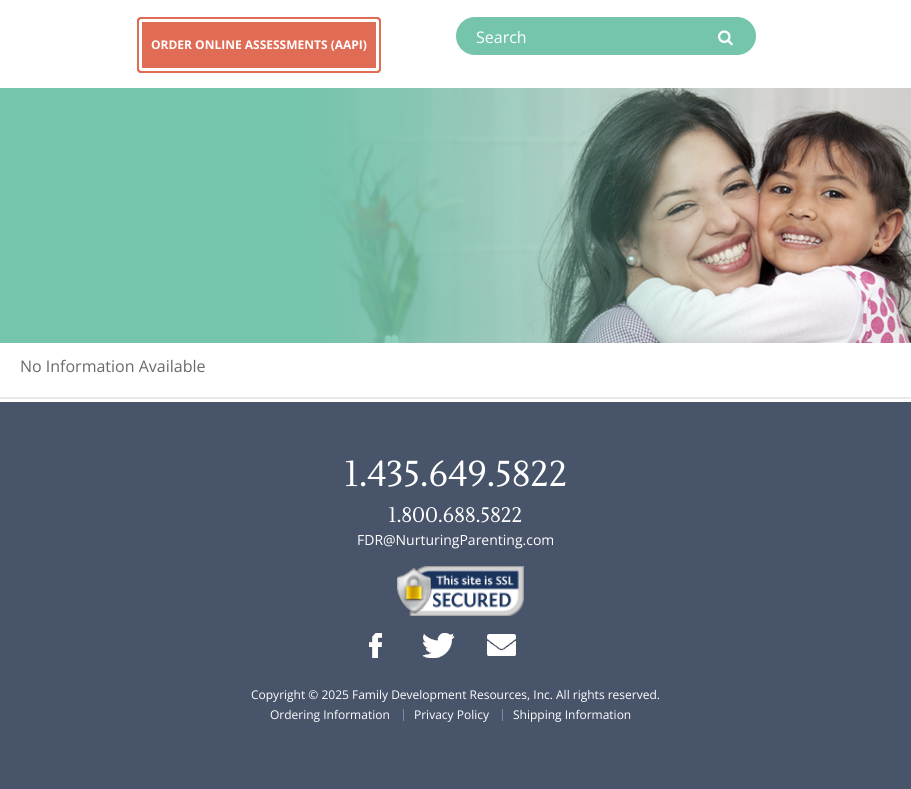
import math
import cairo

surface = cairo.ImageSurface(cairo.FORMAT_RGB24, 911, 789)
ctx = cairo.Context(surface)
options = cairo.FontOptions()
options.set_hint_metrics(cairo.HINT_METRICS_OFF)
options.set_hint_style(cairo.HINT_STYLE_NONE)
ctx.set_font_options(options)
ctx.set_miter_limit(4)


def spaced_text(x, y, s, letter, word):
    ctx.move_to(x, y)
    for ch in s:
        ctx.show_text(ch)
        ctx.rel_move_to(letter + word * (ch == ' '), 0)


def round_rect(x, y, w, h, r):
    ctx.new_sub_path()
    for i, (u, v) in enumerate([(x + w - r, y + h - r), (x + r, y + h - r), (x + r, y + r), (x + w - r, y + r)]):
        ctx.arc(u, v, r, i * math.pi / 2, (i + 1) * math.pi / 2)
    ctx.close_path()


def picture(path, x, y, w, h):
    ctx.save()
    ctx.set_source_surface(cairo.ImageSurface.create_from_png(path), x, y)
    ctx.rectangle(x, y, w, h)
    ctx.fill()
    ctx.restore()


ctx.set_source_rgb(1, 1, 1)
ctx.paint()
ctx.set_source_rgb(0.459, 0.773, 0.678)
round_rect(456, 17, 300, 38, 19)
ctx.fill()
ctx.select_font_face("Open Sans")
ctx.set_font_size(16)
ctx.set_source_rgb(1, 1, 1)
ctx.move_to(476, 43)
ctx.show_text("Search")
picture("img1.png", 718, 30, 15, 16)
ctx.set_source_rgb(0.882, 0.424, 0.333)
round_rect(137, 17, 244, 56, 4)
ctx.fill()
round_rect(140.5, 20.5, 237, 49, 0.5)
ctx.set_source_rgb(1, 1, 1)
ctx.set_line_width(3)
ctx.stroke()
round_rect(138, 18, 242, 54, 3)
ctx.set_source_rgb(0.882, 0.424, 0.333)
ctx.set_line_width(2)
ctx.stroke()
ctx.select_font_face("Open Sans", cairo.FONT_SLANT_NORMAL, cairo.FONT_WEIGHT_BOLD)
ctx.set_font_size(12)
ctx.set_source_rgb(1, 1, 1)
ctx.move_to(151, 49)
ctx.show_text("ORDER ONLINE ASSESSMENTS (AAPI)")
picture("img2.png", 0, 88, 911, 255)
ctx.select_font_face("Open Sans")
ctx.set_font_size(16)
ctx.set_source_rgb(0.412, 0.412, 0.412)
ctx.move_to(20, 372)
ctx.show_text("No Information Available")
ctx.rectangle(-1, 398, 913, 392)
ctx.set_source_rgb(0.914, 0.914, 0.914)
ctx.stroke()
ctx.set_source_rgb(0.282, 0.329, 0.416)
ctx.rectangle(0, 402, 911, 387)
ctx.fill()
ctx.select_font_face("Lustria")
ctx.set_font_size(36)
ctx.set_source_rgb(1, 1, 1)
spaced_text(344, 486, "1.435.649.5822", -0.25, 0)
ctx.set_font_size(21)
spaced_text(388, 522, "1.800.688.5822", -0.25, 0)
ctx.select_font_face("Open Sans")
ctx.set_font_size(14)
ctx.move_to(357, 545)
ctx.show_text("FDR@NurturingParenting.com")
picture("img3.png", 397, 566, 127, 50)
picture("img4.png", 369, 633, 13, 25)
picture("img5.png", 422, 633, 33, 25)
picture("img6.png", 487, 634, 29, 22)
ctx.set_font_size(12)
ctx.move_to(251, 699)
ctx.show_text("Copyright © 2025 Family Development Resources, Inc. All rights reserved.")
ctx.move_to(270, 719)
ctx.show_text("Ordering Information")
ctx.set_source_rgb(0.494, 0.545, 0.635)
ctx.rectangle(403, 709, 1, 12)
ctx.fill()
ctx.set_source_rgb(1, 1, 1)
ctx.move_to(414, 719)
ctx.show_text("Privacy Policy")
ctx.set_source_rgb(0.494, 0.545, 0.635)
ctx.rectangle(502, 709, 1, 12)
ctx.fill()
ctx.set_source_rgb(1, 1, 1)
ctx.move_to(513, 719)
ctx.show_text("Shipping Information")
surface.write_to_png("page.png")
